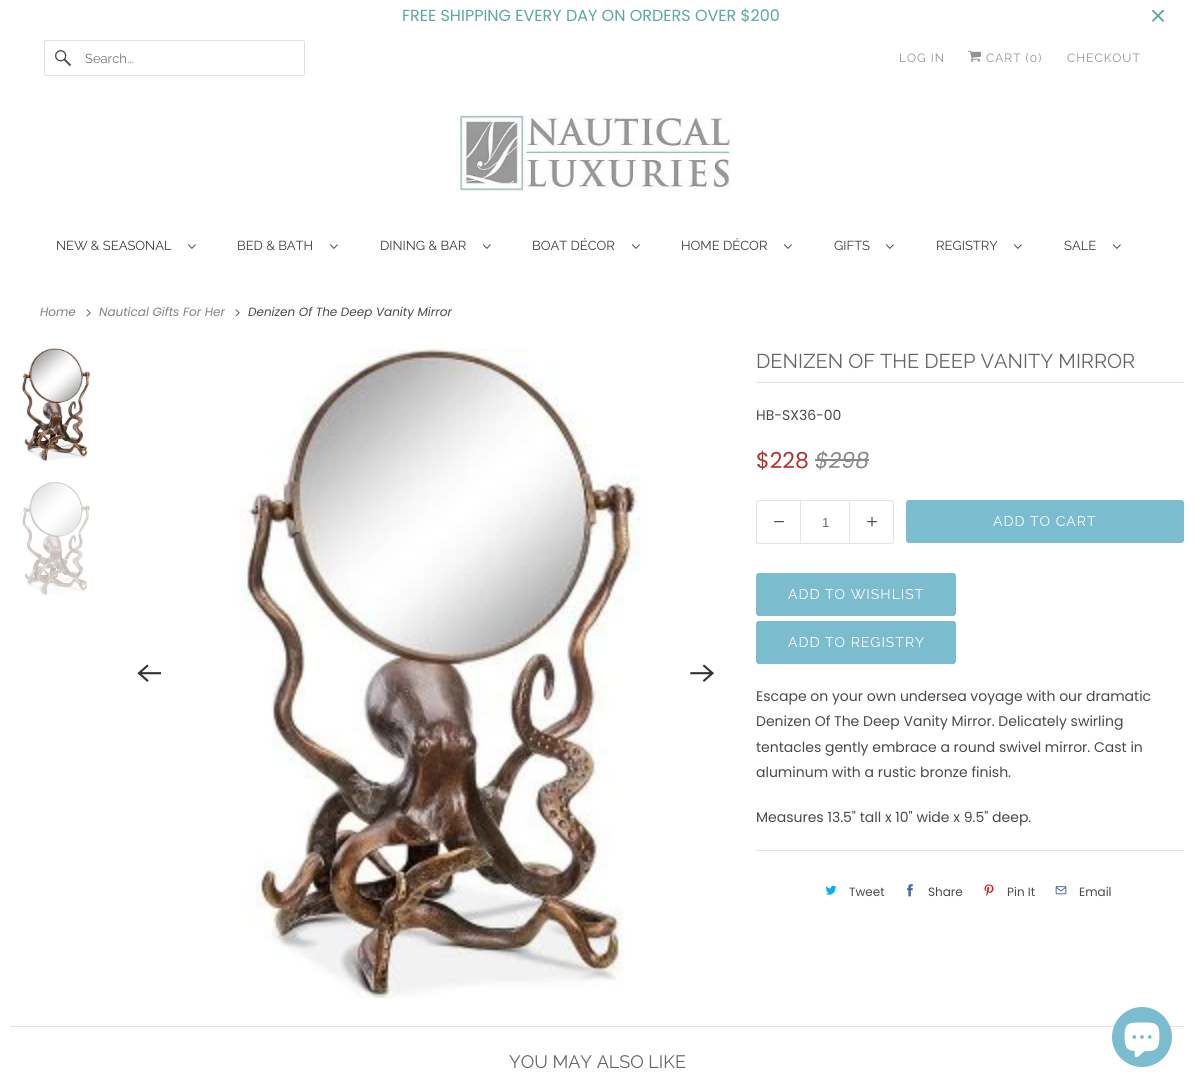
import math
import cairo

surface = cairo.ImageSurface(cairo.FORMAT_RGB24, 1194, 1088)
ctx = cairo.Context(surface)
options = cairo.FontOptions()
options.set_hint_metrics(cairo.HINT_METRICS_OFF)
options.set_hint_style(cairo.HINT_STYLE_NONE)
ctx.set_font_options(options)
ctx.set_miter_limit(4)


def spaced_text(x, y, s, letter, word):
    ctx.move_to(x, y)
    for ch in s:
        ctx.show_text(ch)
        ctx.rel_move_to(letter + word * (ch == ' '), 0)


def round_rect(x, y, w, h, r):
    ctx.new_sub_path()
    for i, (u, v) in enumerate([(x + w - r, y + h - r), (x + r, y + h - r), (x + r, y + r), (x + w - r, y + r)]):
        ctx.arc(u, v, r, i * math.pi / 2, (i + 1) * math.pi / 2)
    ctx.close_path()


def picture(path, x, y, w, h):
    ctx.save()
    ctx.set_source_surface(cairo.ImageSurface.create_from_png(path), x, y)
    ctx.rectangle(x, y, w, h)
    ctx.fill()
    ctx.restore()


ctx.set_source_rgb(1, 1, 1)
ctx.paint()
ctx.select_font_face("Poppins")
ctx.set_font_size(16)
ctx.set_source_rgb(0.361, 0.655, 0.631)
ctx.move_to(402, 21)
ctx.show_text("FREE SHIPPING EVERY DAY ON ORDERS OVER $200")
picture("img1.png", 1152, 9, 12, 13)
round_rect(44.5, 40.5, 260, 35, 1.5)
ctx.set_source_rgb(0.875, 0.875, 0.875)
ctx.set_line_width(1)
ctx.stroke()
picture("img2.png", 55, 50, 16, 16)
ctx.select_font_face("Raleway")
ctx.set_font_size(13)
ctx.set_source_rgb(0.459, 0.459, 0.459)
ctx.move_to(85, 63)
ctx.show_text("Search...")
ctx.set_font_size(12)
ctx.set_source_rgb(0.576, 0.576, 0.576)
spaced_text(899, 62, "LOG IN", 1, 0)
picture("img3.png", 968, 50, 13, 12)
spaced_text(986, 62, "CART (0)", 1, 0)
spaced_text(1067, 62, "CHECKOUT", 1, 0)
picture("img4.png", 456, 115, 275, 76)
ctx.set_font_size(13)
ctx.set_source_rgb(0.235, 0.235, 0.235)
ctx.move_to(56, 250)
ctx.show_text("NEW & SEASONAL")
picture("img5.png", 188, 244, 8, 5)
ctx.move_to(237, 250)
ctx.show_text("BED & BATH")
picture("img5.png", 330, 244, 8, 5)
ctx.move_to(380, 250)
ctx.show_text("DINING & BAR")
picture("img5.png", 483, 244, 8, 5)
ctx.move_to(532, 250)
ctx.show_text("BOAT DÉCOR")
picture("img5.png", 632, 244, 8, 5)
ctx.move_to(681, 250)
ctx.show_text("HOME DÉCOR")
picture("img5.png", 784, 244, 8, 5)
ctx.move_to(834, 250)
ctx.show_text("GIFTS")
picture("img5.png", 886, 244, 8, 5)
ctx.move_to(936, 250)
ctx.show_text("REGISTRY")
picture("img5.png", 1014, 244, 8, 5)
ctx.move_to(1064, 250)
ctx.show_text("SALE")
picture("img5.png", 1113, 244, 8, 5)
ctx.select_font_face("Poppins", cairo.FONT_SLANT_ITALIC)
ctx.set_font_size(12)
ctx.set_source_rgb(0.502, 0.502, 0.502)
ctx.move_to(40, 316)
ctx.show_text("Home")
picture("img6.png", 86, 309, 5, 8)
ctx.move_to(99, 316)
ctx.show_text("Nautical Gifts For Her")
picture("img6.png", 235, 309, 5, 8)
ctx.set_source_rgb(0.275, 0.29, 0.286)
ctx.move_to(248, 316)
ctx.show_text("Denizen Of The Deep Vanity Mirror")
picture("img7.png", 21, 348, 70, 113)
picture("img8.png", 22, 482, 68, 113)
picture("img9.png", 137, 664, 25, 18)
picture("img10.png", 239, 348, 402, 650)
picture("img11.png", 690, 664, 24, 18)
ctx.set_source_rgb(0.894, 0.894, 0.894)
ctx.rectangle(756, 382, 428, 1)
ctx.fill()
ctx.select_font_face("Raleway")
ctx.set_font_size(20)
ctx.set_source_rgb(0.396, 0.396, 0.396)
ctx.move_to(756, 368)
ctx.show_text("DENIZEN OF THE DEEP VANITY MIRROR")
ctx.select_font_face("Poppins")
ctx.set_font_size(14)
ctx.set_source_rgb(0.275, 0.29, 0.286)
ctx.move_to(756, 420)
ctx.show_text("HB-SX36-00")
ctx.set_font_size(22)
ctx.set_source_rgb(0.682, 0.2, 0.2)
ctx.move_to(756, 468)
ctx.show_text("$228")
ctx.select_font_face("Poppins", cairo.FONT_SLANT_ITALIC)
ctx.set_source_rgb(0.533, 0.533, 0.533)
ctx.move_to(815, 468)
ctx.show_text("$298")
ctx.rectangle(815, 459, 54, 2)
ctx.fill()
ctx.set_source_rgb(0.894, 0.894, 0.894)
ctx.set_fill_rule(cairo.FILL_RULE_EVEN_ODD)
ctx.new_path()
ctx.move_to(759, 500)
ctx.line_to(800, 500)
ctx.line_to(800, 544)
ctx.line_to(759, 544)
ctx.curve_to(757, 544, 756, 543, 756, 541)
ctx.line_to(756, 503)
ctx.curve_to(756, 501, 757, 500, 759, 500)
ctx.close_path()
ctx.move_to(759, 501)
ctx.line_to(800, 501)
ctx.line_to(800, 543)
ctx.line_to(759, 543)
ctx.curve_to(758, 543, 757, 542, 757, 541)
ctx.line_to(757, 503)
ctx.curve_to(757, 502, 758, 501, 759, 501)
ctx.close_path()
ctx.fill()
picture("img12.png", 774, 521, 10, 2)
ctx.rectangle(800.5, 500.5, 49, 43)
ctx.stroke()
ctx.select_font_face("Liberation Sans")
ctx.set_font_size(13)
ctx.set_source_rgb(0.373, 0.416, 0.49)
ctx.move_to(822, 527)
ctx.show_text("1")
ctx.set_source_rgb(0.894, 0.894, 0.894)
ctx.new_path()
ctx.move_to(850, 500)
ctx.line_to(891, 500)
ctx.curve_to(893, 500, 894, 501, 894, 503)
ctx.line_to(894, 541)
ctx.curve_to(894, 543, 893, 544, 891, 544)
ctx.line_to(850, 544)
ctx.close_path()
ctx.move_to(850, 501)
ctx.line_to(891, 501)
ctx.curve_to(892, 501, 893, 502, 893, 503)
ctx.line_to(893, 541)
ctx.curve_to(893, 542, 892, 543, 891, 543)
ctx.line_to(850, 543)
ctx.close_path()
ctx.fill()
picture("img13.png", 867, 516, 10, 11)
ctx.set_source_rgb(0.482, 0.737, 0.812)
round_rect(906.5, 500.5, 277, 42, 2.5)
ctx.fill_preserve()
ctx.stroke()
ctx.select_font_face("Raleway")
ctx.set_font_size(14)
ctx.set_source_rgb(1, 1, 1)
spaced_text(993, 526, "ADD TO CART", 1, 0)
ctx.set_source_rgb(0.482, 0.737, 0.812)
round_rect(756.5, 573.5, 199, 42, 2.5)
ctx.fill_preserve()
ctx.stroke()
ctx.set_source_rgb(1, 1, 1)
spaced_text(788, 599, "ADD TO WISHLIST", 1, 0)
ctx.set_source_rgb(0.482, 0.737, 0.812)
round_rect(756.5, 621.5, 199, 42, 2.5)
ctx.fill_preserve()
ctx.stroke()
ctx.set_source_rgb(1, 1, 1)
spaced_text(788, 647, "ADD TO REGISTRY", 1, 0)
ctx.select_font_face("Poppins")
ctx.set_source_rgb(0.275, 0.29, 0.286)
ctx.move_to(756, 701)
ctx.show_text("Escape on your own undersea voyage with our dramatic")
ctx.move_to(756, 726)
ctx.show_text("Denizen Of The Deep Vanity Mirror. Delicately swirling")
ctx.move_to(756, 752)
ctx.show_text("tentacles gently embrace a round swivel mirror. Cast in")
ctx.move_to(756, 777)
ctx.show_text("aluminum with a rustic bronze finish.")
ctx.move_to(756, 822)
ctx.show_text("Measures 13.5\" tall x 10\" wide x 9.5\" deep.")
ctx.set_source_rgb(0.894, 0.894, 0.894)
ctx.rectangle(756, 850, 428, 1)
ctx.fill()
picture("img14.png", 825, 885, 12, 10)
ctx.set_font_size(12)
ctx.set_source_rgb(0.275, 0.29, 0.286)
ctx.move_to(849, 896)
ctx.show_text("Tweet")
picture("img15.png", 907, 884, 6, 13)
ctx.move_to(928, 896)
ctx.show_text("Share")
picture("img16.png", 984, 884, 10, 12)
ctx.move_to(1007, 896)
ctx.show_text("Pin It")
picture("img17.png", 1055, 886, 12, 9)
ctx.move_to(1079, 896)
ctx.show_text("Email")
ctx.set_source_rgb(0.894, 0.894, 0.894)
ctx.rectangle(10, 1026, 1174, 1)
ctx.fill()
ctx.select_font_face("Raleway")
ctx.set_font_size(18)
ctx.set_source_rgb(0.396, 0.396, 0.396)
ctx.move_to(509, 1068)
ctx.show_text("YOU MAY ALSO LIKE")
ctx.set_source_rgb(0.482, 0.737, 0.812)
ctx.new_path()
ctx.arc(1142, 1037, 30, 0, 2 * math.pi)
ctx.fill()
picture("img18.png", 1124, 1022, 36, 36)
surface.write_to_png("page.png")
